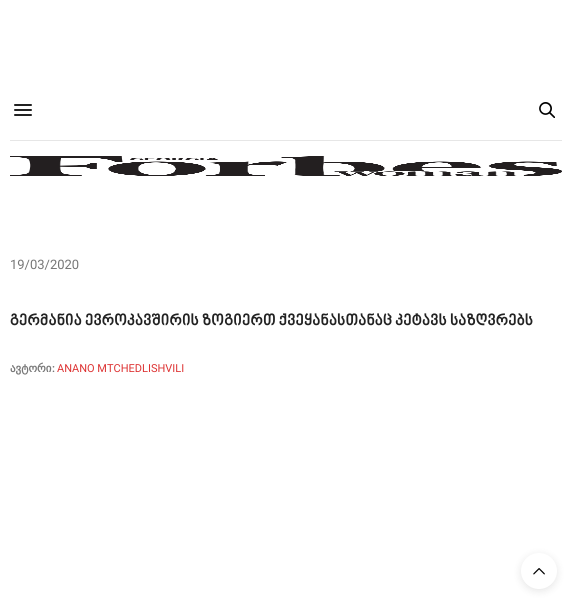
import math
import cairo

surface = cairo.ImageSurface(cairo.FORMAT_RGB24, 572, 604)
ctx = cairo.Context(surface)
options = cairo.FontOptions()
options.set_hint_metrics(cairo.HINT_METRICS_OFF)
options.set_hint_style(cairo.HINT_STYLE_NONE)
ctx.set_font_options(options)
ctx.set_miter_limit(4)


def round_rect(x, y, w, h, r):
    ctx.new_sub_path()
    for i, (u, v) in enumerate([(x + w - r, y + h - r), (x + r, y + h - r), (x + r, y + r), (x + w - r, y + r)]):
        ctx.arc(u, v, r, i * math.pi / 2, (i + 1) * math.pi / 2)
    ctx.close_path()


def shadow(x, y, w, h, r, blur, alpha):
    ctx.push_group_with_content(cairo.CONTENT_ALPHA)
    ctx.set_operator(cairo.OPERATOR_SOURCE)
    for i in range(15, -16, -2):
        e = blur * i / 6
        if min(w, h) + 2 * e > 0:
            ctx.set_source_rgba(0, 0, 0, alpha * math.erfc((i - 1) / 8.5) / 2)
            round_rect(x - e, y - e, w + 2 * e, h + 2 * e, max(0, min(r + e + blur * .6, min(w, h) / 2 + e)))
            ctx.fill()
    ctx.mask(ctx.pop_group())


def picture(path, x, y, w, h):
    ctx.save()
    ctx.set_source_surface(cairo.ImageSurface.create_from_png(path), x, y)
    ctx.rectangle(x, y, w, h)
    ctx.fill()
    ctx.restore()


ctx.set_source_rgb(1, 1, 1)
ctx.paint()
ctx.set_source_rgb(0.902, 0.902, 0.902)
ctx.rectangle(10, 140, 552, 1)
ctx.fill()
ctx.set_source_rgb(0.133, 0.133, 0.133)
round_rect(14, 104, 18, 2, 1)
ctx.fill()
round_rect(14, 109, 18, 2, 1)
ctx.fill()
round_rect(14, 114, 18, 2, 1)
ctx.fill()
picture("img1.png", 539, 102, 16, 16)
picture("img2.png", 10, 156, 552, 20)
ctx.select_font_face("Roboto")
ctx.set_font_size(13)
ctx.set_source_rgb(0.463, 0.463, 0.463)
ctx.move_to(10, 269)
ctx.show_text("19/03/2020")
ctx.select_font_face("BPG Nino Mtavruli", cairo.FONT_SLANT_NORMAL, cairo.FONT_WEIGHT_BOLD)
ctx.set_font_size(16)
ctx.set_source_rgb(0.133, 0.133, 0.133)
ctx.move_to(10, 326)
ctx.show_text("გერმანია ევროკავშირის ზოგიერთ ქვეყანასთანაც კეტავს საზღვრებს")
ctx.select_font_face("DejaVu Sans", cairo.FONT_SLANT_NORMAL, cairo.FONT_WEIGHT_BOLD)
ctx.set_font_size(11)
ctx.set_source_rgb(0.463, 0.463, 0.463)
ctx.move_to(10, 372)
ctx.show_text("ავტორი")
ctx.select_font_face("Roboto SemiBold")
ctx.move_to(52, 372)
ctx.show_text(":")
ctx.select_font_face("Roboto")
ctx.set_source_rgb(0.867, 0.2, 0.2)
ctx.move_to(57, 372)
ctx.show_text("ANANO MTCHEDLISHVILI")
ctx.set_source_rgb(0, 0, 0)
shadow(521, 555, 36, 36, 18, 4, 0.1)
ctx.set_source_rgb(1, 1, 1)
ctx.arc(539, 571, 18, 0, 2 * math.pi)
ctx.fill()
picture("img3.png", 533, 568, 12, 7)
surface.write_to_png("page.png")
